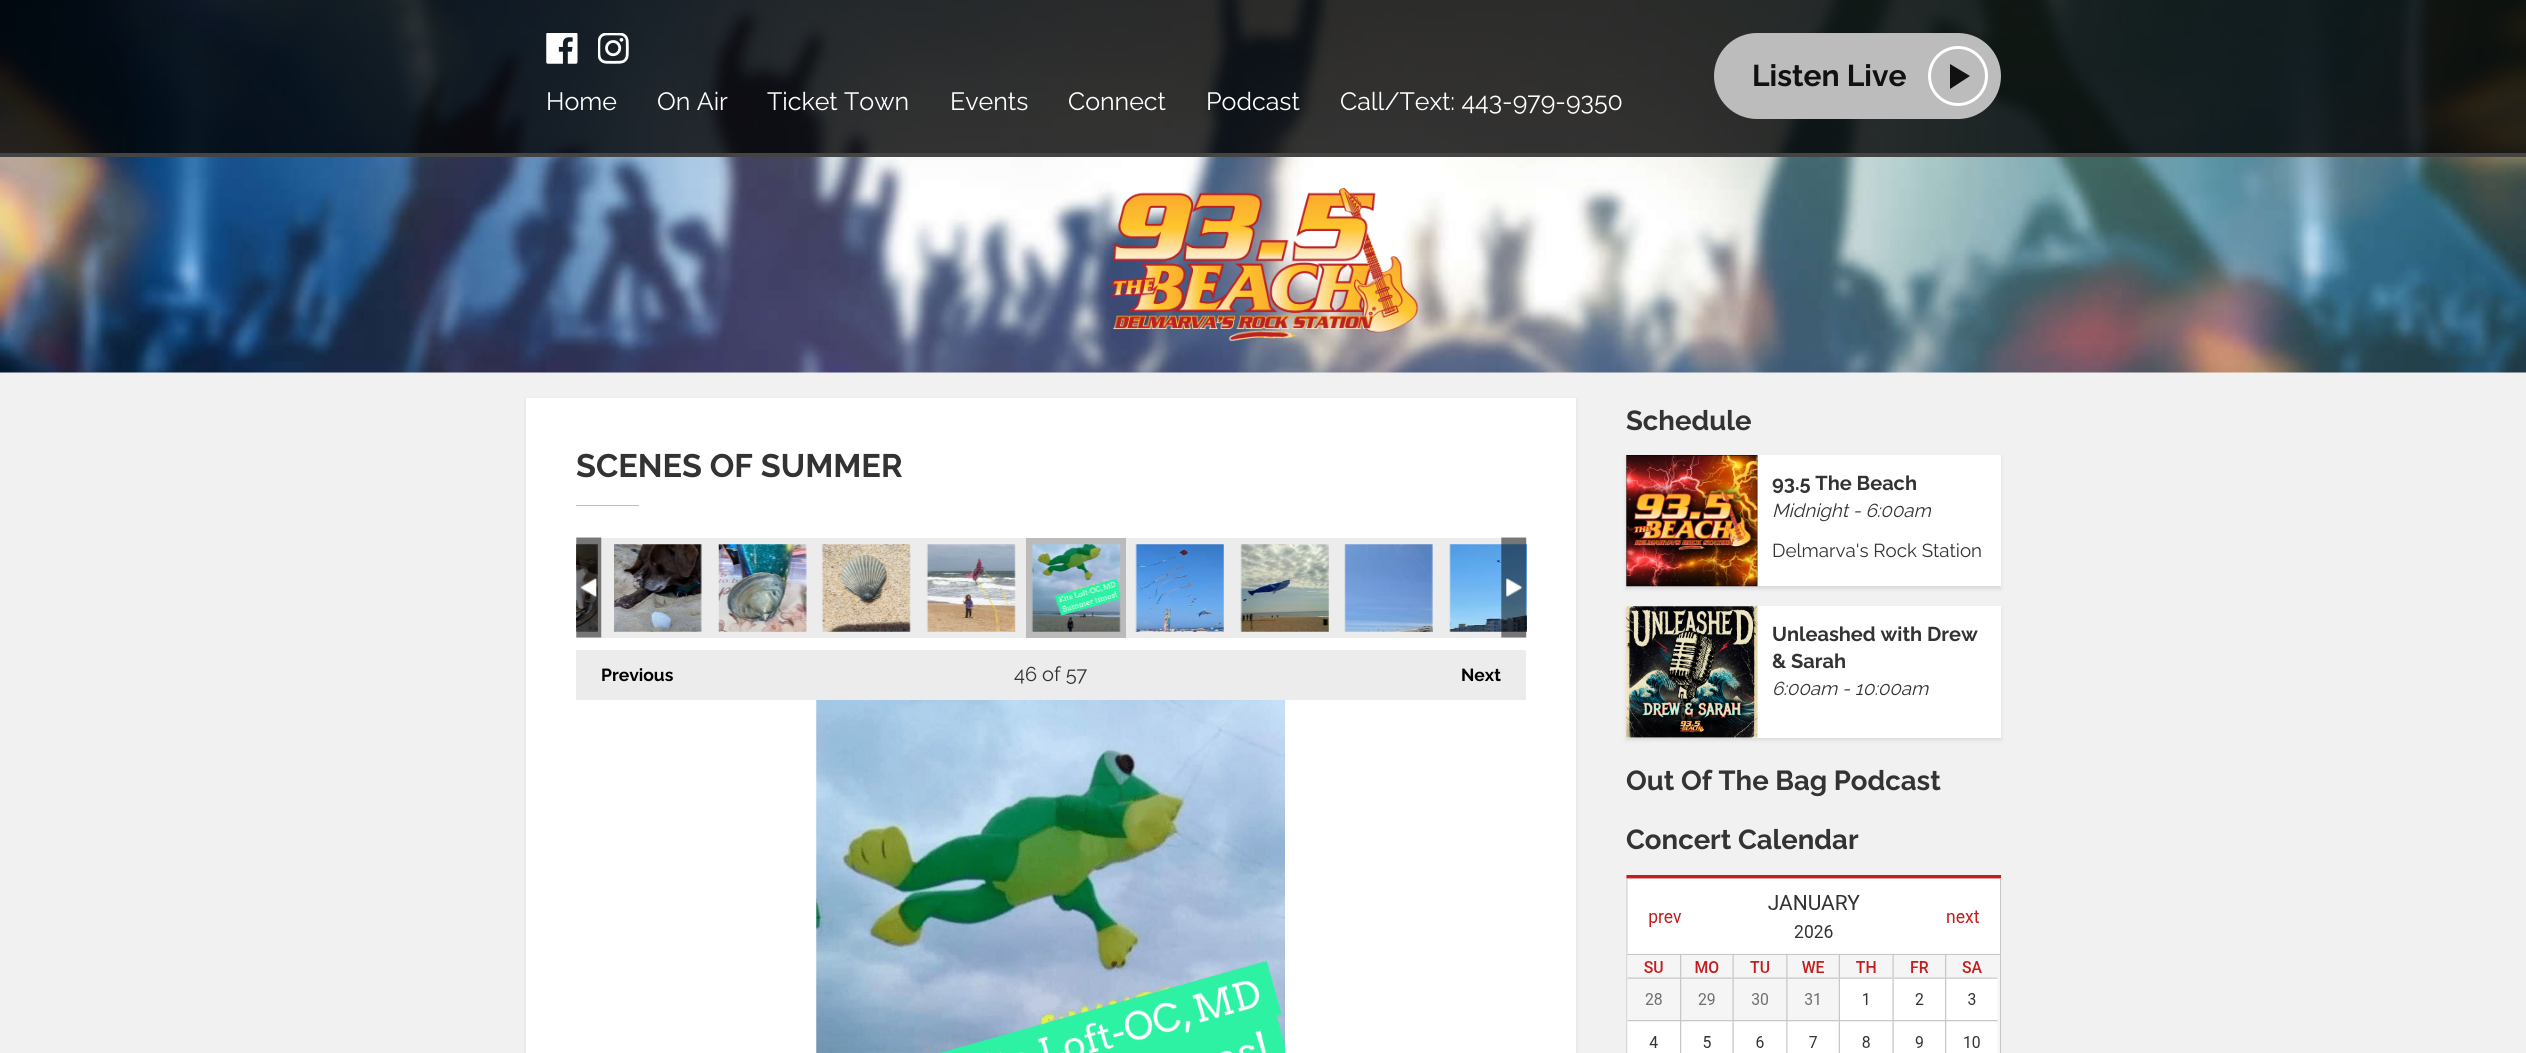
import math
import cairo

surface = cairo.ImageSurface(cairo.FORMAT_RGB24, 2526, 1053)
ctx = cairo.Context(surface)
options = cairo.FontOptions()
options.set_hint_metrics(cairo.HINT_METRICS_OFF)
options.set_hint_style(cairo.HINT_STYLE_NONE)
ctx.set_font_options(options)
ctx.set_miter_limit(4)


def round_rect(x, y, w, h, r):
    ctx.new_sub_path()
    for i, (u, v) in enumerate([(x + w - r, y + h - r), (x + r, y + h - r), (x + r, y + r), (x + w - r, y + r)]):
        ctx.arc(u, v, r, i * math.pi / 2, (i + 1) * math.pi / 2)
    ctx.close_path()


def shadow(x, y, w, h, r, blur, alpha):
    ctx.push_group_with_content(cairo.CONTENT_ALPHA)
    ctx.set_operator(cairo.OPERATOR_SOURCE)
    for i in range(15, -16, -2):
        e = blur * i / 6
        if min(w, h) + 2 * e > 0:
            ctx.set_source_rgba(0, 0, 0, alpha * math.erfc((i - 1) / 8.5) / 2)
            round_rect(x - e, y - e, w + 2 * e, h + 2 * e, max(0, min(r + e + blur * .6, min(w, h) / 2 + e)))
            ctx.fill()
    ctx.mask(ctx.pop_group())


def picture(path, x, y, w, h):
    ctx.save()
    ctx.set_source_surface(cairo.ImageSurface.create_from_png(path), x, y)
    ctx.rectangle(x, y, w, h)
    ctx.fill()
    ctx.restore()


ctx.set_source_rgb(0.945, 0.945, 0.945)
ctx.paint()
picture("img1.png", 0, 0, 2526, 373)
ctx.set_source_rgba(0, 0, 0, 0.8)
ctx.rectangle(0, 0, 2526, 153)
ctx.fill()
ctx.set_source_rgb(0.267, 0.267, 0.267)
ctx.rectangle(0, 153, 2526, 4)
ctx.fill()
ctx.set_source_rgb(0.741, 0.737, 0.737)
round_rect(1714, 33, 287, 86, 43)
ctx.fill()
ctx.select_font_face("Raleway", cairo.FONT_SLANT_NORMAL, cairo.FONT_WEIGHT_BOLD)
ctx.set_font_size(30)
ctx.set_source_rgb(0.067, 0.067, 0.067)
ctx.move_to(1752, 86)
ctx.show_text("Listen Live")
ctx.new_path()
ctx.arc(1958, 76, 28.5, 0, 2 * math.pi)
ctx.set_source_rgb(1, 1, 1)
ctx.set_line_width(3)
ctx.stroke()
ctx.set_source_rgb(0.067, 0.067, 0.067)
ctx.new_path()
ctx.move_to(1950, 89)
ctx.line_to(1950, 64)
ctx.line_to(1970, 76)
ctx.close_path()
ctx.fill()
picture("img2.png", 546, 33, 32, 31)
picture("img3.png", 598, 33, 31, 31)
ctx.select_font_face("Raleway")
ctx.set_font_size(25)
ctx.set_source_rgb(1, 1, 1)
ctx.move_to(546, 110)
ctx.show_text("Home")
ctx.move_to(657, 110)
ctx.show_text("On Air")
ctx.move_to(767, 110)
ctx.show_text("Ticket Town")
ctx.move_to(950, 110)
ctx.show_text("Events")
ctx.move_to(1068, 110)
ctx.show_text("Connect")
ctx.move_to(1206, 110)
ctx.show_text("Podcast")
ctx.move_to(1340, 110)
ctx.show_text("Call/Text: 443-979-9350")
picture("img4.png", 1110, 187, 309, 155)
ctx.set_source_rgb(0, 0, 0)
shadow(526, 400, 1050, 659, 0, 2, 0.1)
ctx.set_source_rgb(1, 1, 1)
ctx.rectangle(526, 398, 1050, 655)
ctx.fill()
ctx.select_font_face("Raleway", cairo.FONT_SLANT_NORMAL, cairo.FONT_WEIGHT_BOLD)
ctx.set_font_size(32.5)
ctx.set_source_rgb(0.2, 0.2, 0.2)
ctx.move_to(576, 477)
ctx.show_text("SCENES OF SUMMER")
ctx.set_source_rgb(0.741, 0.737, 0.737)
ctx.rectangle(576, 505, 63, 1)
ctx.fill()
ctx.set_source_rgb(0.922, 0.922, 0.922)
ctx.rectangle(576, 538, 950, 100)
ctx.fill()
picture("img7.png", 576, 544, 22, 88)
picture("img5.png", 576, 537, 26, 101)
picture("img16.png", 1449, 544, 78, 88)
picture("img6.png", 1501, 537, 26, 101)
picture("img8.png", 614, 544, 88, 88)
picture("img9.png", 718, 544, 89, 88)
picture("img10.png", 821, 544, 90, 88)
picture("img11.png", 926, 544, 90, 88)
ctx.set_source_rgb(0.733, 0.733, 0.733)
ctx.rectangle(1026, 538, 100, 100)
ctx.fill()
picture("img12.png", 1031, 544, 90, 88)
picture("img13.png", 1135, 544, 89, 88)
picture("img14.png", 1240, 544, 89, 88)
picture("img15.png", 1344, 544, 89, 88)
ctx.set_source_rgb(0.922, 0.922, 0.922)
ctx.rectangle(576, 650, 950, 50)
ctx.fill()
ctx.set_font_size(17.5)
ctx.set_source_rgb(0, 0, 0)
ctx.move_to(601, 681)
ctx.show_text("Previous")
ctx.select_font_face("Raleway")
ctx.set_font_size(20)
ctx.set_source_rgb(0.2, 0.2, 0.2)
ctx.move_to(1014, 681)
ctx.show_text("46 of 57")
ctx.select_font_face("Raleway", cairo.FONT_SLANT_NORMAL, cairo.FONT_WEIGHT_BOLD)
ctx.set_font_size(17.5)
ctx.set_source_rgb(0, 0, 0)
ctx.move_to(1461, 681)
ctx.show_text("Next")
picture("img17.png", 816, 700, 469, 353)
ctx.set_font_size(27.5)
ctx.set_source_rgb(0.2, 0.2, 0.2)
ctx.move_to(1626, 430)
ctx.show_text("Schedule")
ctx.set_source_rgb(0, 0, 0)
shadow(1626, 458, 375, 131, 0, 2, 0.1)
ctx.set_source_rgb(1, 1, 1)
ctx.rectangle(1626, 455, 375, 131)
ctx.fill()
picture("img18.png", 1626, 455, 132, 132)
ctx.set_font_size(20)
ctx.set_source_rgb(0.2, 0.2, 0.2)
ctx.move_to(1772, 490)
ctx.show_text("93.5 The Beach")
ctx.select_font_face("Raleway", cairo.FONT_SLANT_ITALIC)
ctx.set_font_size(18.75)
ctx.move_to(1772, 517)
ctx.show_text("Midnight - 6:00am")
ctx.select_font_face("Raleway")
ctx.move_to(1772, 557)
ctx.show_text("Delmarva's Rock Station")
ctx.set_source_rgb(0, 0, 0)
shadow(1626, 609, 375, 131, 0, 2, 0.1)
ctx.set_source_rgb(1, 1, 1)
ctx.rectangle(1626, 606, 375, 132)
ctx.fill()
picture("img19.png", 1626, 606, 132, 132)
ctx.select_font_face("Raleway", cairo.FONT_SLANT_NORMAL, cairo.FONT_WEIGHT_BOLD)
ctx.set_font_size(20)
ctx.set_source_rgb(0.2, 0.2, 0.2)
ctx.move_to(1772, 641)
ctx.show_text("Unleashed with Drew")
ctx.move_to(1772, 668)
ctx.show_text("& Sarah")
ctx.select_font_face("Raleway", cairo.FONT_SLANT_ITALIC)
ctx.set_font_size(18.75)
ctx.move_to(1772, 695)
ctx.show_text("6:00am - 10:00am")
ctx.select_font_face("Raleway", cairo.FONT_SLANT_NORMAL, cairo.FONT_WEIGHT_BOLD)
ctx.set_font_size(27.5)
ctx.move_to(1626, 790)
ctx.show_text("Out Of The Bag Podcast")
ctx.move_to(1626, 849)
ctx.show_text("Concert Calendar")
picture("img20.png", 1626, 875, 376, 178)
surface.write_to_png("page.png")
